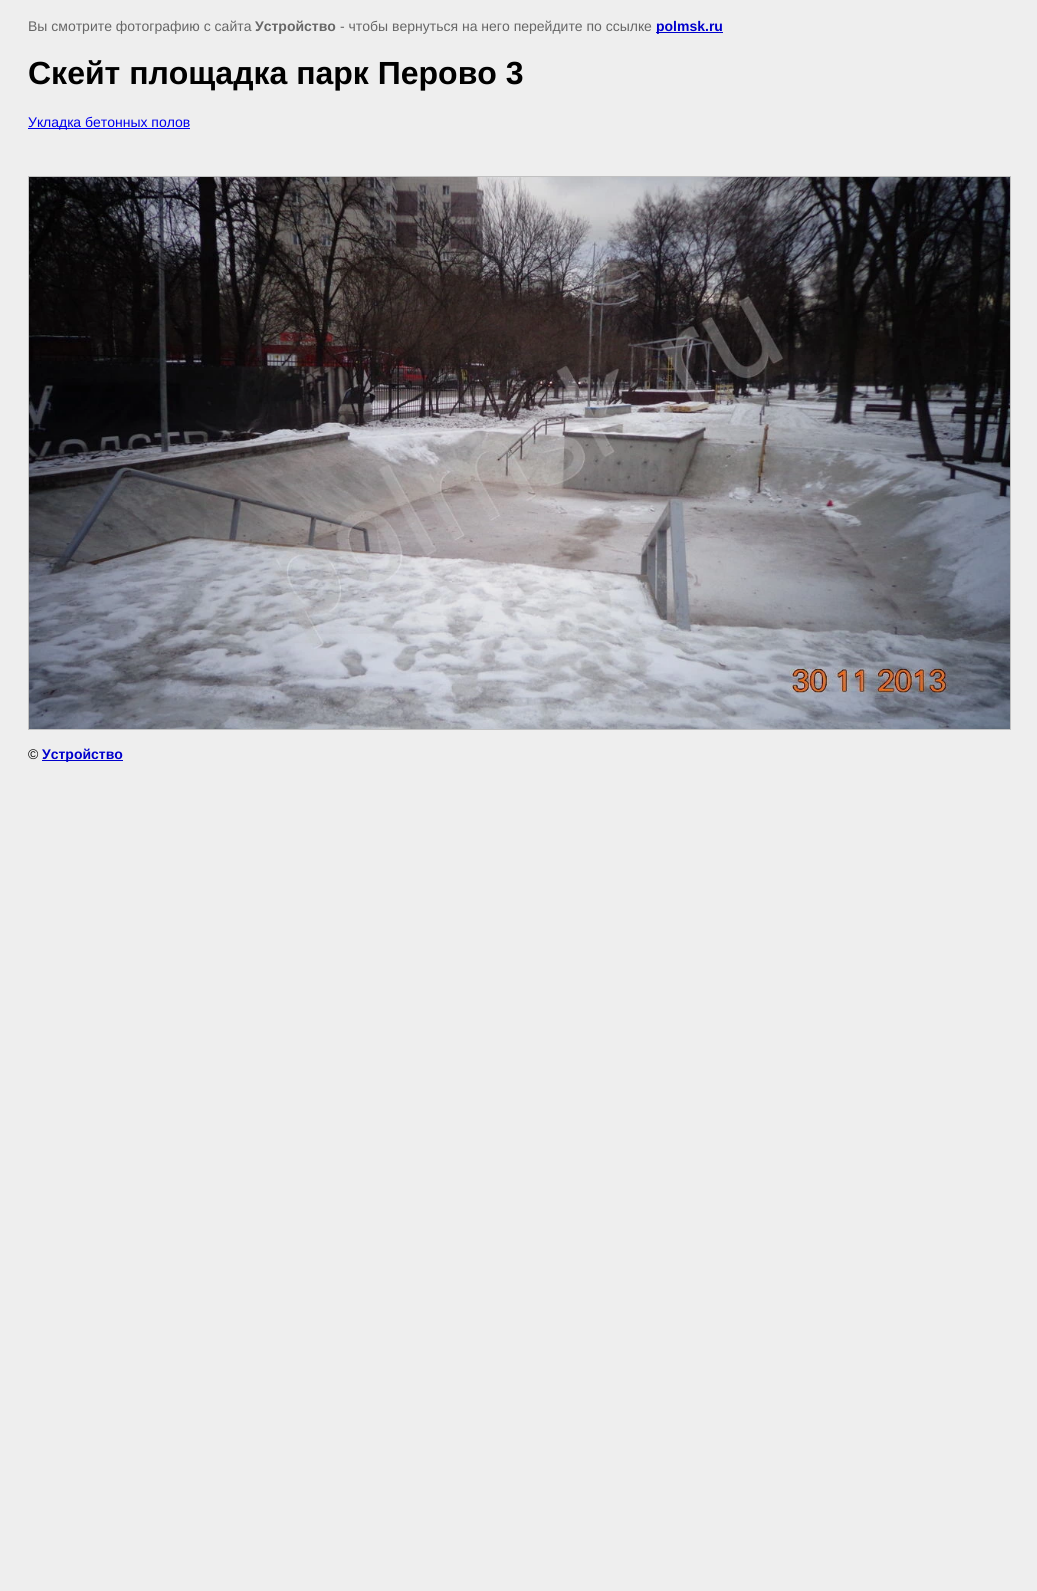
import math
import cairo

surface = cairo.ImageSurface(cairo.FORMAT_RGB24, 1037, 1591)
ctx = cairo.Context(surface)
options = cairo.FontOptions()
options.set_hint_metrics(cairo.HINT_METRICS_OFF)
options.set_hint_style(cairo.HINT_STYLE_NONE)
ctx.set_font_options(options)
ctx.set_miter_limit(4)


def picture(path, x, y, w, h):
    ctx.save()
    ctx.set_source_surface(cairo.ImageSurface.create_from_png(path), x, y)
    ctx.rectangle(x, y, w, h)
    ctx.fill()
    ctx.restore()


ctx.set_source_rgb(0.933, 0.933, 0.933)
ctx.paint()
ctx.select_font_face("Liberation Sans")
ctx.set_font_size(14)
ctx.set_source_rgb(0.4, 0.4, 0.4)
ctx.move_to(28, 31)
ctx.show_text("Вы смотрите фотографию с сайта")
ctx.select_font_face("Liberation Sans", cairo.FONT_SLANT_NORMAL, cairo.FONT_WEIGHT_BOLD)
ctx.move_to(255, 31)
ctx.show_text("Устройство")
ctx.select_font_face("Liberation Sans")
ctx.move_to(340, 31)
ctx.show_text("- чтобы вернуться на него перейдите по ссылке")
ctx.set_source_rgb(0, 0, 0.8)
ctx.rectangle(656, 32, 67, 1)
ctx.fill()
ctx.select_font_face("Liberation Sans", cairo.FONT_SLANT_NORMAL, cairo.FONT_WEIGHT_BOLD)
ctx.move_to(656, 31)
ctx.show_text("polmsk.ru")
ctx.set_font_size(32)
ctx.set_source_rgb(0, 0, 0)
ctx.move_to(28, 84)
ctx.show_text("Скейт площадка парк Перово 3")
ctx.set_source_rgb(0, 0, 0.933)
ctx.rectangle(28, 128, 162, 1)
ctx.fill()
ctx.select_font_face("Liberation Sans")
ctx.set_font_size(14)
ctx.move_to(28, 127)
ctx.show_text("Укладка бетонных полов")
ctx.rectangle(28.5, 176.5, 982, 553)
ctx.set_source_rgb(0.753, 0.753, 0.753)
ctx.set_line_width(1)
ctx.stroke()
picture("img1.png", 29, 177, 981, 552)
ctx.set_source_rgb(0, 0, 0)
ctx.move_to(28, 759)
ctx.show_text("©")
ctx.set_source_rgb(0, 0, 0.8)
ctx.rectangle(42, 760, 81, 1)
ctx.fill()
ctx.select_font_face("Liberation Sans", cairo.FONT_SLANT_NORMAL, cairo.FONT_WEIGHT_BOLD)
ctx.move_to(42, 759)
ctx.show_text("Устройство")
surface.write_to_png("page.png")
